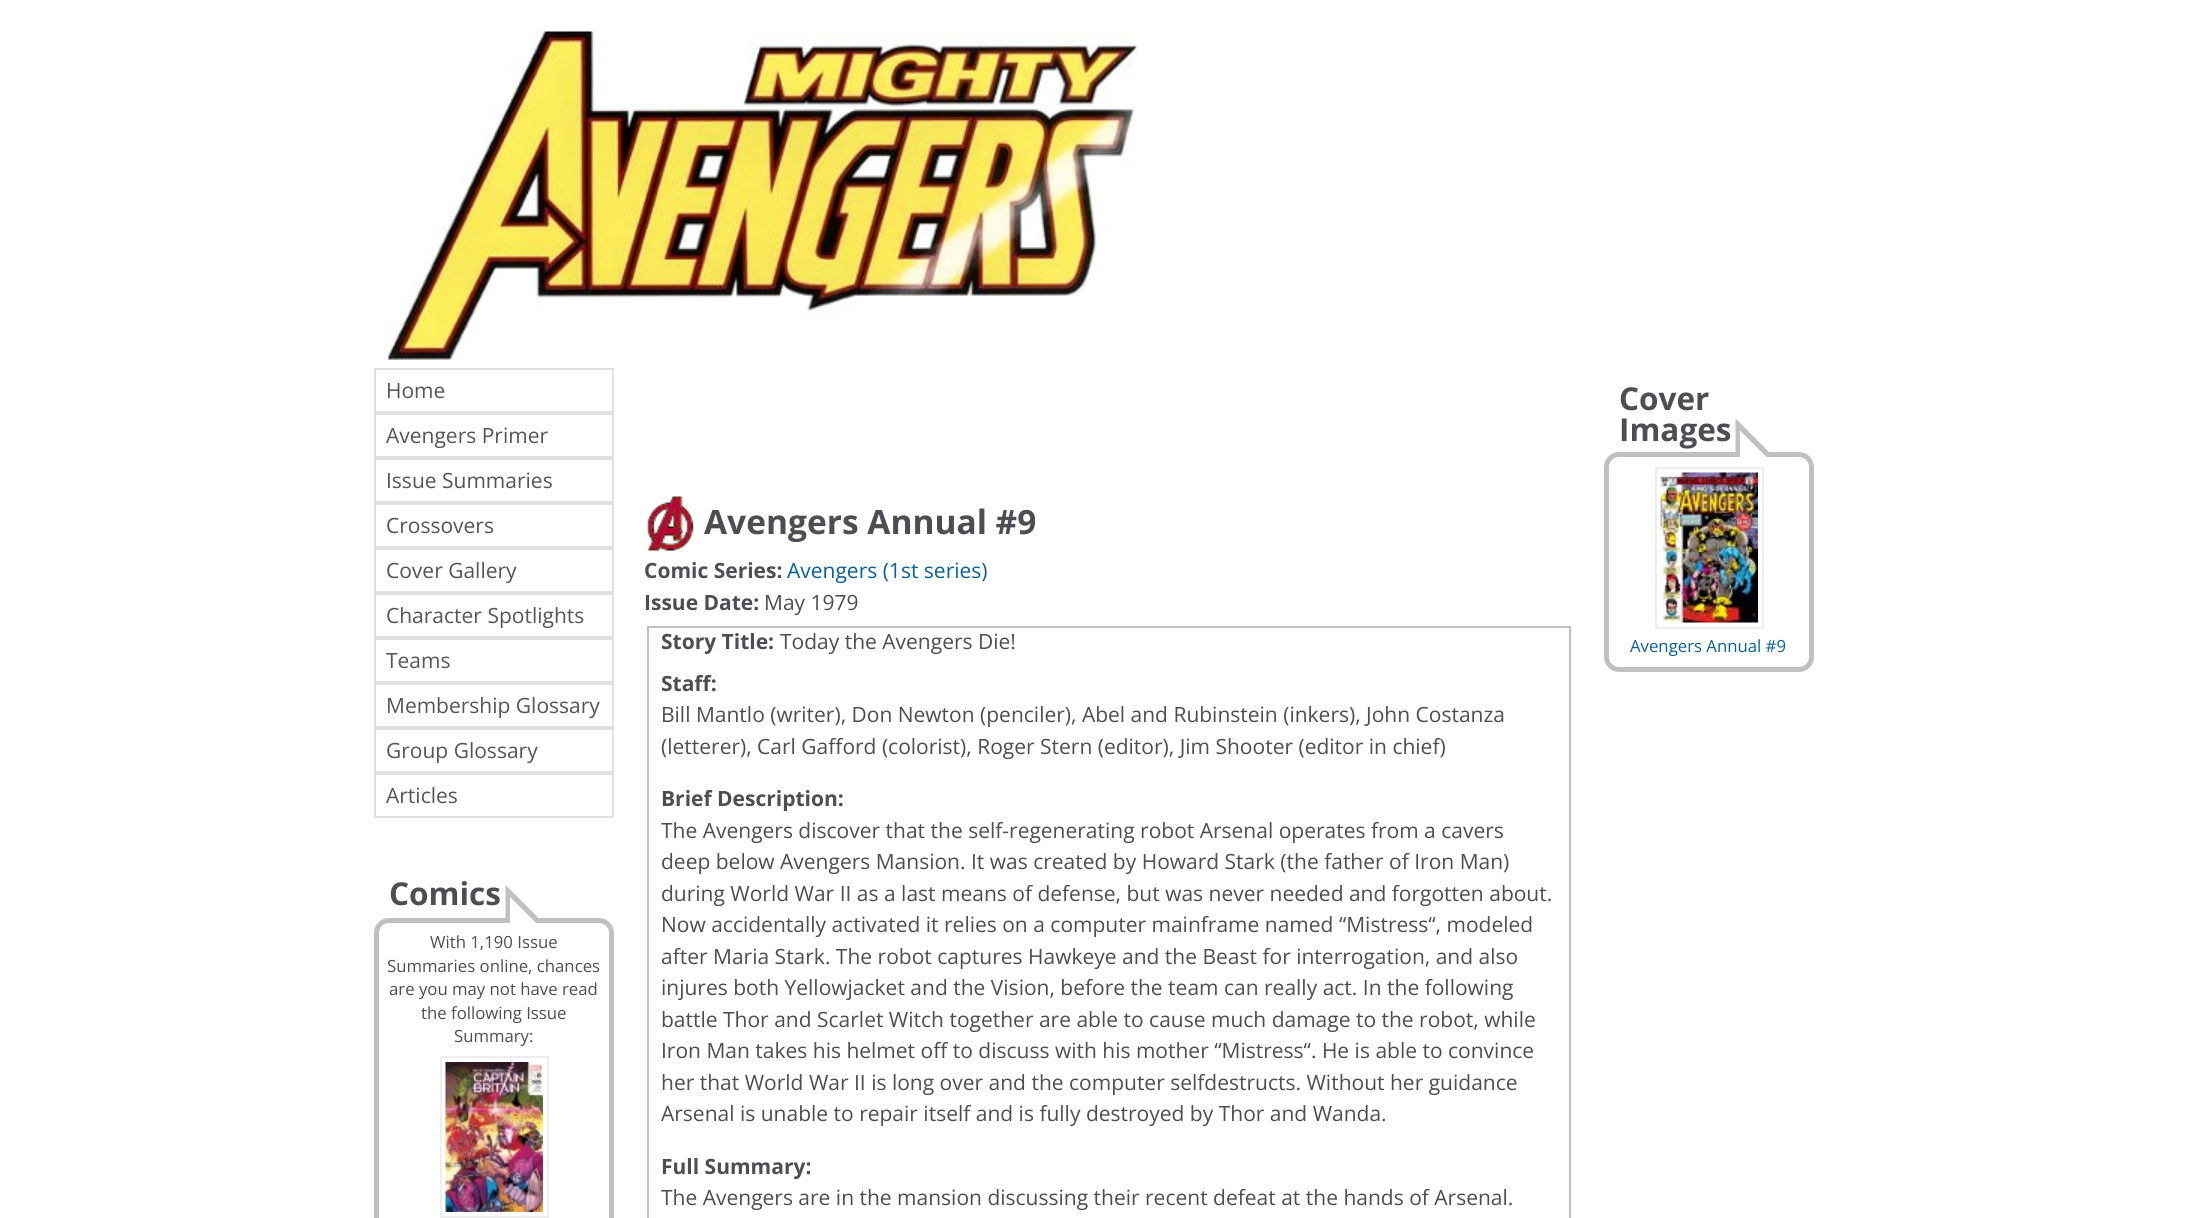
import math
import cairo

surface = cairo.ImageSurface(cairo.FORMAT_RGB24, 2187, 1218)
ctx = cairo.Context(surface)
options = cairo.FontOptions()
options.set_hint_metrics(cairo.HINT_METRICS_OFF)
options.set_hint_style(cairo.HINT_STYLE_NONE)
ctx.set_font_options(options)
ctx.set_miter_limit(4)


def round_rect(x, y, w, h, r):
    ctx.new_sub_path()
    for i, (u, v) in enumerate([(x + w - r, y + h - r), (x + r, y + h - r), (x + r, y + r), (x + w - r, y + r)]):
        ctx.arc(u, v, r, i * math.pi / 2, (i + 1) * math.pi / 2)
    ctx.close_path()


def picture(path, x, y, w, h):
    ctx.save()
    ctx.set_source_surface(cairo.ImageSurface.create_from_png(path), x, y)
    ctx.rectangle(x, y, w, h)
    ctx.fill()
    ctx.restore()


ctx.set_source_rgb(1, 1, 1)
ctx.paint()
picture("img1.png", 388, 31, 751, 329)
ctx.rectangle(375, 369, 238, 43)
ctx.set_source_rgb(0.882, 0.882, 0.882)
ctx.stroke()
ctx.select_font_face("Open Sans")
ctx.set_font_size(21)
ctx.set_source_rgb(0.333, 0.333, 0.333)
ctx.move_to(386, 398)
ctx.show_text("Home")
ctx.rectangle(375, 414, 238, 43)
ctx.set_source_rgb(0.882, 0.882, 0.882)
ctx.stroke()
ctx.set_source_rgb(0.333, 0.333, 0.333)
ctx.move_to(386, 443)
ctx.show_text("Avengers Primer")
ctx.rectangle(375, 459, 238, 43)
ctx.set_source_rgb(0.882, 0.882, 0.882)
ctx.stroke()
ctx.set_source_rgb(0.333, 0.333, 0.333)
ctx.move_to(386, 488)
ctx.show_text("Issue Summaries")
ctx.rectangle(375, 504, 238, 43)
ctx.set_source_rgb(0.882, 0.882, 0.882)
ctx.stroke()
ctx.set_source_rgb(0.333, 0.333, 0.333)
ctx.move_to(386, 533)
ctx.show_text("Crossovers")
ctx.rectangle(375, 549, 238, 43)
ctx.set_source_rgb(0.882, 0.882, 0.882)
ctx.stroke()
ctx.set_source_rgb(0.333, 0.333, 0.333)
ctx.move_to(386, 578)
ctx.show_text("Cover Gallery")
ctx.rectangle(375, 594, 238, 43)
ctx.set_source_rgb(0.882, 0.882, 0.882)
ctx.stroke()
ctx.set_source_rgb(0.333, 0.333, 0.333)
ctx.move_to(386, 623)
ctx.show_text("Character Spotlights")
ctx.rectangle(375, 639, 238, 43)
ctx.set_source_rgb(0.882, 0.882, 0.882)
ctx.stroke()
ctx.set_source_rgb(0.333, 0.333, 0.333)
ctx.move_to(386, 668)
ctx.show_text("Teams")
ctx.rectangle(375, 684, 238, 43)
ctx.set_source_rgb(0.882, 0.882, 0.882)
ctx.stroke()
ctx.set_source_rgb(0.333, 0.333, 0.333)
ctx.move_to(386, 713)
ctx.show_text("Membership Glossary")
ctx.rectangle(375, 729, 238, 43)
ctx.set_source_rgb(0.882, 0.882, 0.882)
ctx.stroke()
ctx.set_source_rgb(0.333, 0.333, 0.333)
ctx.move_to(386, 758)
ctx.show_text("Group Glossary")
ctx.rectangle(375, 774, 238, 43)
ctx.set_source_rgb(0.882, 0.882, 0.882)
ctx.stroke()
ctx.set_source_rgb(0.333, 0.333, 0.333)
ctx.move_to(386, 803)
ctx.show_text("Articles")
ctx.select_font_face("Open Sans", cairo.FONT_SLANT_NORMAL, cairo.FONT_WEIGHT_BOLD)
ctx.set_font_size(31.5)
ctx.set_source_rgb(0.302, 0.306, 0.325)
ctx.move_to(389, 905)
ctx.show_text("Comics")
round_rect(376.5, 920.5, 235, 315, 12.5)
ctx.set_source_rgb(0.753, 0.753, 0.753)
ctx.set_line_width(5)
ctx.stroke()
ctx.new_path()
ctx.move_to(505.5, 922.5)
ctx.line_to(505.5, 885)
ctx.line_to(543, 922.5)
ctx.close_path()
ctx.fill()
ctx.set_source_rgb(1, 1, 1)
ctx.new_path()
ctx.move_to(510, 927)
ctx.line_to(510, 897)
ctx.line_to(540, 927)
ctx.close_path()
ctx.fill()
ctx.select_font_face("Open Sans")
ctx.set_font_size(16.75)
ctx.set_source_rgb(0.302, 0.306, 0.325)
ctx.move_to(430, 948)
ctx.show_text("With 1,190 Issue")
ctx.move_to(387, 972)
ctx.show_text("Summaries online, chances")
ctx.move_to(389, 995)
ctx.show_text("are you may not have read")
ctx.move_to(421, 1019)
ctx.show_text("the following Issue")
ctx.move_to(454, 1042)
ctx.show_text("Summary:")
ctx.rectangle(441, 1057, 107, 160)
ctx.set_source_rgb(0.933, 0.933, 0.933)
ctx.set_line_width(2)
ctx.stroke()
picture("img2.png", 445, 1062, 98, 150)
ctx.select_font_face("Open Sans", cairo.FONT_SLANT_NORMAL, cairo.FONT_WEIGHT_BOLD)
ctx.set_font_size(31.5)
ctx.set_source_rgb(0.302, 0.306, 0.325)
ctx.move_to(1619, 410)
ctx.show_text("Cover")
ctx.move_to(1619, 441)
ctx.show_text("Images")
round_rect(1606.5, 454.5, 205, 215, 12.5)
ctx.set_source_rgb(0.753, 0.753, 0.753)
ctx.set_line_width(5)
ctx.stroke()
ctx.new_path()
ctx.move_to(1735.5, 456)
ctx.line_to(1735.5, 418.5)
ctx.line_to(1773, 456)
ctx.close_path()
ctx.fill()
ctx.set_source_rgb(1, 1, 1)
ctx.new_path()
ctx.move_to(1740, 460.5)
ctx.line_to(1740, 430.5)
ctx.line_to(1770, 460.5)
ctx.close_path()
ctx.fill()
ctx.rectangle(1656, 468, 107, 160)
ctx.set_source_rgb(0.933, 0.933, 0.933)
ctx.set_line_width(2)
ctx.stroke()
picture("img3.png", 1660, 472, 98, 151)
ctx.select_font_face("Open Sans")
ctx.set_font_size(16.75)
ctx.set_source_rgb(0.031, 0.38, 0.612)
ctx.move_to(1630, 652)
ctx.show_text("Avengers Annual #9")
picture("img4.png", 646, 496, 48, 55)
ctx.select_font_face("Open Sans", cairo.FONT_SLANT_NORMAL, cairo.FONT_WEIGHT_BOLD)
ctx.set_font_size(33.5)
ctx.set_source_rgb(0.302, 0.306, 0.325)
ctx.move_to(704, 534)
ctx.show_text("Avengers Annual #9")
ctx.set_font_size(21)
ctx.move_to(644, 578)
ctx.show_text("Comic Series:")
ctx.select_font_face("Open Sans")
ctx.set_source_rgb(0.031, 0.38, 0.612)
ctx.move_to(787, 578)
ctx.show_text("Avengers (1st series)")
ctx.select_font_face("Open Sans", cairo.FONT_SLANT_NORMAL, cairo.FONT_WEIGHT_BOLD)
ctx.set_source_rgb(0.302, 0.306, 0.325)
ctx.move_to(644, 610)
ctx.show_text("Issue Date:")
ctx.select_font_face("Open Sans")
ctx.move_to(764, 610)
ctx.show_text("May 1979")
ctx.rectangle(648, 627, 922, 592)
ctx.set_source_rgb(0.753, 0.753, 0.753)
ctx.stroke()
ctx.select_font_face("Open Sans", cairo.FONT_SLANT_NORMAL, cairo.FONT_WEIGHT_BOLD)
ctx.set_source_rgb(0.302, 0.306, 0.325)
ctx.move_to(661, 649)
ctx.show_text("Story Title:")
ctx.select_font_face("Open Sans")
ctx.move_to(780, 649)
ctx.show_text("Today the Avengers Die!")
ctx.select_font_face("Open Sans", cairo.FONT_SLANT_NORMAL, cairo.FONT_WEIGHT_BOLD)
ctx.move_to(661, 691)
ctx.show_text("Staff:")
ctx.select_font_face("Open Sans")
ctx.move_to(661, 722)
ctx.show_text("Bill Mantlo (writer), Don Newton (penciler), Abel and Rubinstein (inkers), John Costanza")
ctx.move_to(661, 754)
ctx.show_text("(letterer), Carl Gafford (colorist), Roger Stern (editor), Jim Shooter (editor in chief)")
ctx.select_font_face("Open Sans", cairo.FONT_SLANT_NORMAL, cairo.FONT_WEIGHT_BOLD)
ctx.move_to(661, 806)
ctx.show_text("Brief Description:")
ctx.select_font_face("Open Sans")
ctx.move_to(661, 838)
ctx.show_text("The Avengers discover that the self-regenerating robot Arsenal operates from a cavers")
ctx.move_to(661, 869)
ctx.show_text("deep below Avengers Mansion. It was created by Howard Stark (the father of Iron Man)")
ctx.move_to(661, 901)
ctx.show_text("during World War II as a last means of defense, but was never needed and forgotten about.")
ctx.move_to(661, 932)
ctx.show_text("Now accidentally activated it relies on a computer mainframe named “Mistress“, modeled")
ctx.move_to(661, 964)
ctx.show_text("after Maria Stark. The robot captures Hawkeye and the Beast for interrogation, and also")
ctx.move_to(661, 995)
ctx.show_text("injures both Yellowjacket and the Vision, before the team can really act. In the following")
ctx.move_to(661, 1027)
ctx.show_text("battle Thor and Scarlet Witch together are able to cause much damage to the robot, while")
ctx.move_to(661, 1058)
ctx.show_text("Iron Man takes his helmet off to discuss with his mother “Mistress“. He is able to convince")
ctx.move_to(661, 1090)
ctx.show_text("her that World War II is long over and the computer selfdestructs. Without her guidance")
ctx.move_to(661, 1121)
ctx.show_text("Arsenal is unable to repair itself and is fully destroyed by Thor and Wanda.")
ctx.select_font_face("Open Sans", cairo.FONT_SLANT_NORMAL, cairo.FONT_WEIGHT_BOLD)
ctx.move_to(661, 1174)
ctx.show_text("Full Summary:")
ctx.select_font_face("Open Sans")
ctx.move_to(661, 1205)
ctx.show_text("The Avengers are in the mansion discussing their recent defeat at the hands of Arsenal.")
surface.write_to_png("page.png")
